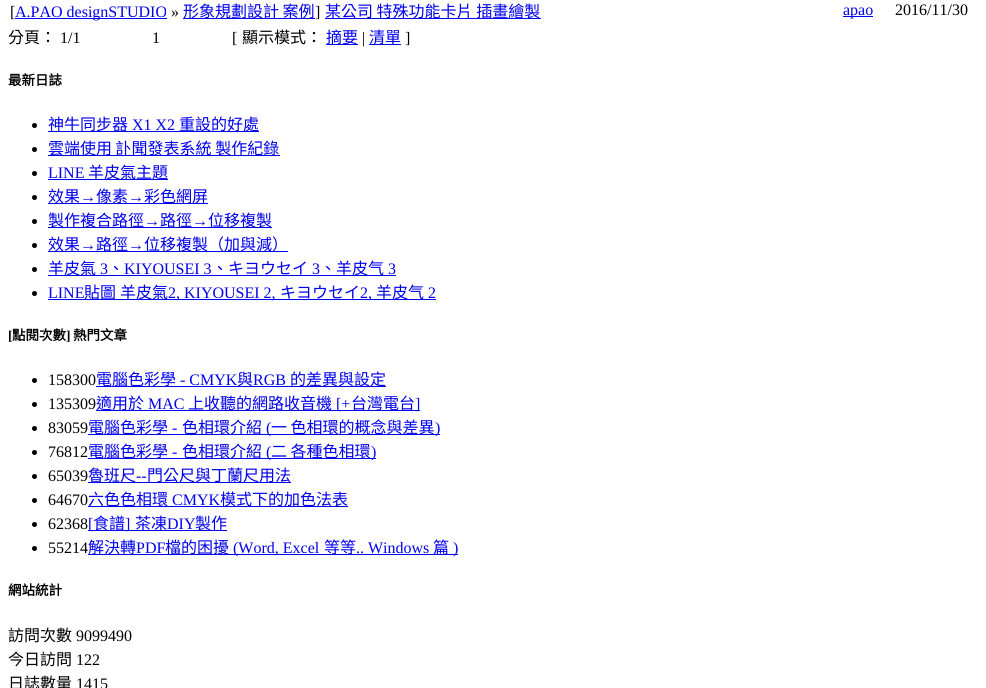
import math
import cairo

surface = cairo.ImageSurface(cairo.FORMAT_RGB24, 986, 688)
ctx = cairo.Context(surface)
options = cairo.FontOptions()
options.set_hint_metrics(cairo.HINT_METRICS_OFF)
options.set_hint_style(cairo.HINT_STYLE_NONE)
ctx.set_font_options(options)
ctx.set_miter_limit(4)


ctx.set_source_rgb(1, 1, 1)
ctx.paint()
ctx.select_font_face("Liberation Serif")
ctx.set_font_size(16)
ctx.set_source_rgb(0, 0, 0)
ctx.move_to(10, 17)
ctx.show_text("[")
ctx.set_source_rgb(0, 0, 0.933)
ctx.rectangle(15, 18, 152, 1)
ctx.fill()
ctx.move_to(15, 17)
ctx.show_text("A.PAO designSTUDIO")
ctx.set_source_rgb(0, 0, 0)
ctx.move_to(171, 17)
ctx.show_text("»")
ctx.set_source_rgb(0, 0, 0.933)
ctx.rectangle(183, 18, 132, 1)
ctx.fill()
ctx.select_font_face("Noto Sans CJK TC")
ctx.move_to(183, 17)
ctx.show_text("形象規劃設計 案例")
ctx.select_font_face("Liberation Serif")
ctx.set_source_rgb(0, 0, 0)
ctx.move_to(315, 17)
ctx.show_text("]")
ctx.set_source_rgb(0, 0, 0.933)
ctx.rectangle(325, 18, 216, 1)
ctx.fill()
ctx.select_font_face("Noto Sans CJK TC")
ctx.move_to(325, 17)
ctx.show_text("某公司 特殊功能卡片 插畫繪製")
ctx.rectangle(843, 16, 30, 1)
ctx.fill()
ctx.select_font_face("Liberation Serif")
ctx.move_to(843, 15)
ctx.show_text("apao")
ctx.set_source_rgb(0, 0, 0)
ctx.move_to(895, 15)
ctx.show_text("2016/11/30")
ctx.select_font_face("Noto Sans CJK TC")
ctx.move_to(8, 43)
ctx.show_text("分頁：")
ctx.select_font_face("Liberation Serif")
ctx.move_to(60, 43)
ctx.show_text("1/1")
ctx.move_to(152, 43)
ctx.show_text("1")
ctx.move_to(232, 43)
ctx.show_text("[")
ctx.select_font_face("Noto Sans CJK TC")
ctx.move_to(242, 43)
ctx.show_text("顯示模式：")
ctx.set_source_rgb(0, 0, 0.933)
ctx.rectangle(326, 44, 32, 1)
ctx.fill()
ctx.move_to(326, 43)
ctx.show_text("摘要")
ctx.select_font_face("Liberation Serif")
ctx.set_source_rgb(0, 0, 0)
ctx.move_to(362, 43)
ctx.show_text("|")
ctx.set_source_rgb(0, 0, 0.933)
ctx.rectangle(369, 44, 32, 1)
ctx.fill()
ctx.select_font_face("Noto Sans CJK TC")
ctx.move_to(369, 43)
ctx.show_text("清單")
ctx.select_font_face("Liberation Serif")
ctx.set_source_rgb(0, 0, 0)
ctx.move_to(405, 43)
ctx.show_text("]")
ctx.select_font_face("Noto Sans CJK TC", cairo.FONT_SLANT_NORMAL, cairo.FONT_WEIGHT_BOLD)
ctx.set_font_size(13.5)
ctx.move_to(8, 85)
ctx.show_text("最新日誌")
ctx.new_path()
ctx.arc(34.5, 125.5, 2.5, 0, 2 * math.pi)
ctx.fill()
ctx.set_source_rgb(0, 0, 0.933)
ctx.rectangle(48, 131, 211, 1)
ctx.fill()
ctx.select_font_face("Noto Sans CJK TC")
ctx.set_font_size(16)
ctx.move_to(48, 130)
ctx.show_text("神牛同步器")
ctx.select_font_face("Liberation Serif")
ctx.move_to(132, 130)
ctx.show_text("X1 X2")
ctx.select_font_face("Noto Sans CJK TC")
ctx.move_to(179, 130)
ctx.show_text("重設的好處")
ctx.set_source_rgb(0, 0, 0)
ctx.new_path()
ctx.arc(34.5, 149.5, 2.5, 0, 2 * math.pi)
ctx.fill()
ctx.set_source_rgb(0, 0, 0.933)
ctx.rectangle(48, 155, 232, 1)
ctx.fill()
ctx.move_to(48, 154)
ctx.show_text("雲端使用 訃聞發表系統 製作紀錄")
ctx.set_source_rgb(0, 0, 0)
ctx.new_path()
ctx.arc(34.5, 173.5, 2.5, 0, 2 * math.pi)
ctx.fill()
ctx.select_font_face("Liberation Serif")
ctx.set_source_rgb(0, 0, 0.933)
ctx.move_to(48, 178)
ctx.show_text("LINE")
ctx.rectangle(48, 179, 120, 1)
ctx.fill()
ctx.select_font_face("Noto Sans CJK TC")
ctx.move_to(88, 178)
ctx.show_text("羊皮氣主題")
ctx.set_source_rgb(0, 0, 0)
ctx.new_path()
ctx.arc(34.5, 197.5, 2.5, 0, 2 * math.pi)
ctx.fill()
ctx.set_source_rgb(0, 0, 0.933)
ctx.rectangle(48, 203, 160, 1)
ctx.fill()
ctx.move_to(48, 202)
ctx.show_text("效果")
ctx.select_font_face("Liberation Serif")
ctx.move_to(80, 202)
ctx.show_text("→")
ctx.select_font_face("Noto Sans CJK TC")
ctx.move_to(96, 202)
ctx.show_text("像素")
ctx.select_font_face("Liberation Serif")
ctx.move_to(128, 202)
ctx.show_text("→")
ctx.select_font_face("Noto Sans CJK TC")
ctx.move_to(144, 202)
ctx.show_text("彩色網屏")
ctx.set_source_rgb(0, 0, 0)
ctx.new_path()
ctx.arc(34.5, 221.5, 2.5, 0, 2 * math.pi)
ctx.fill()
ctx.set_source_rgb(0, 0, 0.933)
ctx.rectangle(48, 227, 224, 1)
ctx.fill()
ctx.move_to(48, 226)
ctx.show_text("製作複合路徑")
ctx.select_font_face("Liberation Serif")
ctx.move_to(144, 226)
ctx.show_text("→")
ctx.select_font_face("Noto Sans CJK TC")
ctx.move_to(160, 226)
ctx.show_text("路徑")
ctx.select_font_face("Liberation Serif")
ctx.move_to(192, 226)
ctx.show_text("→")
ctx.select_font_face("Noto Sans CJK TC")
ctx.move_to(208, 226)
ctx.show_text("位移複製")
ctx.set_source_rgb(0, 0, 0)
ctx.new_path()
ctx.arc(34.5, 245.5, 2.5, 0, 2 * math.pi)
ctx.fill()
ctx.set_source_rgb(0, 0, 0.933)
ctx.rectangle(48, 251, 240, 1)
ctx.fill()
ctx.move_to(48, 250)
ctx.show_text("效果")
ctx.select_font_face("Liberation Serif")
ctx.move_to(80, 250)
ctx.show_text("→")
ctx.select_font_face("Noto Sans CJK TC")
ctx.move_to(96, 250)
ctx.show_text("路徑")
ctx.select_font_face("Liberation Serif")
ctx.move_to(128, 250)
ctx.show_text("→")
ctx.select_font_face("Noto Sans CJK TC")
ctx.move_to(144, 250)
ctx.show_text("位移複製（加與減）")
ctx.set_source_rgb(0, 0, 0)
ctx.new_path()
ctx.arc(34.5, 269.5, 2.5, 0, 2 * math.pi)
ctx.fill()
ctx.set_source_rgb(0, 0, 0.933)
ctx.rectangle(48, 275, 348, 1)
ctx.fill()
ctx.move_to(48, 274)
ctx.show_text("羊皮氣")
ctx.select_font_face("Liberation Serif")
ctx.move_to(100, 274)
ctx.show_text("3")
ctx.select_font_face("Noto Sans CJK TC")
ctx.move_to(108, 274)
ctx.show_text("、")
ctx.select_font_face("Liberation Serif")
ctx.move_to(124, 274)
ctx.show_text("KIYOUSEI 3")
ctx.select_font_face("Noto Sans CJK TC")
ctx.move_to(212, 274)
ctx.show_text("、キヨウセイ")
ctx.select_font_face("Liberation Serif")
ctx.move_to(312, 274)
ctx.show_text("3")
ctx.select_font_face("Noto Sans CJK TC")
ctx.move_to(320, 274)
ctx.show_text("、羊皮气")
ctx.select_font_face("Liberation Serif")
ctx.move_to(388, 274)
ctx.show_text("3")
ctx.set_source_rgb(0, 0, 0)
ctx.new_path()
ctx.arc(34.5, 293.5, 2.5, 0, 2 * math.pi)
ctx.fill()
ctx.set_source_rgb(0, 0, 0.933)
ctx.move_to(48, 298)
ctx.show_text("LINE")
ctx.rectangle(48, 299, 388, 1)
ctx.fill()
ctx.select_font_face("Noto Sans CJK TC")
ctx.move_to(84, 298)
ctx.show_text("貼圖")
ctx.move_to(120, 298)
ctx.show_text("羊皮氣")
ctx.select_font_face("Liberation Serif")
ctx.move_to(168, 298)
ctx.show_text("2, KIYOUSEI 2,")
ctx.select_font_face("Noto Sans CJK TC")
ctx.move_to(280, 298)
ctx.show_text("キヨウセイ")
ctx.select_font_face("Liberation Serif")
ctx.move_to(360, 298)
ctx.show_text("2,")
ctx.select_font_face("Noto Sans CJK TC")
ctx.move_to(376, 298)
ctx.show_text("羊皮气")
ctx.select_font_face("Liberation Serif")
ctx.move_to(428, 298)
ctx.show_text("2")
ctx.select_font_face("Liberation Serif", cairo.FONT_SLANT_NORMAL, cairo.FONT_WEIGHT_BOLD)
ctx.set_font_size(13.5)
ctx.set_source_rgb(0, 0, 0)
ctx.move_to(8, 340)
ctx.show_text("[")
ctx.select_font_face("Noto Sans CJK TC", cairo.FONT_SLANT_NORMAL, cairo.FONT_WEIGHT_BOLD)
ctx.move_to(12, 340)
ctx.show_text("點閱次數")
ctx.select_font_face("Liberation Serif", cairo.FONT_SLANT_NORMAL, cairo.FONT_WEIGHT_BOLD)
ctx.move_to(66, 340)
ctx.show_text("]")
ctx.select_font_face("Noto Sans CJK TC", cairo.FONT_SLANT_NORMAL, cairo.FONT_WEIGHT_BOLD)
ctx.move_to(73, 340)
ctx.show_text("熱門文章")
ctx.new_path()
ctx.arc(34.5, 380.5, 2.5, 0, 2 * math.pi)
ctx.fill()
ctx.select_font_face("Liberation Serif")
ctx.set_font_size(16)
ctx.move_to(48, 385)
ctx.show_text("158300")
ctx.set_source_rgb(0, 0, 0.933)
ctx.rectangle(96, 386, 290, 1)
ctx.fill()
ctx.select_font_face("Noto Sans CJK TC")
ctx.move_to(96, 385)
ctx.show_text("電腦色彩學")
ctx.select_font_face("Liberation Serif")
ctx.move_to(180, 385)
ctx.show_text("- CMYK")
ctx.select_font_face("Noto Sans CJK TC")
ctx.move_to(237, 385)
ctx.show_text("與")
ctx.select_font_face("Liberation Serif")
ctx.move_to(253, 385)
ctx.show_text("RGB")
ctx.select_font_face("Noto Sans CJK TC")
ctx.move_to(290, 385)
ctx.show_text("的差異與設定")
ctx.set_source_rgb(0, 0, 0)
ctx.new_path()
ctx.arc(34.5, 404.5, 2.5, 0, 2 * math.pi)
ctx.fill()
ctx.select_font_face("Liberation Serif")
ctx.move_to(48, 409)
ctx.show_text("135309")
ctx.set_source_rgb(0, 0, 0.933)
ctx.rectangle(96, 410, 324, 1)
ctx.fill()
ctx.select_font_face("Noto Sans CJK TC")
ctx.move_to(96, 409)
ctx.show_text("適用於")
ctx.select_font_face("Liberation Serif")
ctx.move_to(148, 409)
ctx.show_text("MAC")
ctx.select_font_face("Noto Sans CJK TC")
ctx.move_to(188, 409)
ctx.show_text("上收聽的網路收音機")
ctx.select_font_face("Liberation Serif")
ctx.move_to(336, 409)
ctx.show_text("[+")
ctx.select_font_face("Noto Sans CJK TC")
ctx.move_to(351, 409)
ctx.show_text("台灣電台")
ctx.select_font_face("Liberation Serif")
ctx.move_to(415, 409)
ctx.show_text("]")
ctx.set_source_rgb(0, 0, 0)
ctx.new_path()
ctx.arc(34.5, 428.5, 2.5, 0, 2 * math.pi)
ctx.fill()
ctx.move_to(48, 433)
ctx.show_text("83059")
ctx.set_source_rgb(0, 0, 0.933)
ctx.rectangle(88, 434, 352, 1)
ctx.fill()
ctx.select_font_face("Noto Sans CJK TC")
ctx.move_to(88, 433)
ctx.show_text("電腦色彩學")
ctx.select_font_face("Liberation Serif")
ctx.move_to(172, 433)
ctx.show_text("-")
ctx.select_font_face("Noto Sans CJK TC")
ctx.move_to(182, 433)
ctx.show_text("色相環介紹")
ctx.select_font_face("Liberation Serif")
ctx.move_to(266, 433)
ctx.show_text("(")
ctx.select_font_face("Noto Sans CJK TC")
ctx.move_to(271, 433)
ctx.show_text("一 色相環的概念與差異")
ctx.select_font_face("Liberation Serif")
ctx.move_to(435, 433)
ctx.show_text(")")
ctx.set_source_rgb(0, 0, 0)
ctx.new_path()
ctx.arc(34.5, 452.5, 2.5, 0, 2 * math.pi)
ctx.fill()
ctx.move_to(48, 457)
ctx.show_text("76812")
ctx.set_source_rgb(0, 0, 0.933)
ctx.rectangle(88, 458, 288, 1)
ctx.fill()
ctx.select_font_face("Noto Sans CJK TC")
ctx.move_to(88, 457)
ctx.show_text("電腦色彩學")
ctx.select_font_face("Liberation Serif")
ctx.move_to(172, 457)
ctx.show_text("-")
ctx.select_font_face("Noto Sans CJK TC")
ctx.move_to(182, 457)
ctx.show_text("色相環介紹")
ctx.select_font_face("Liberation Serif")
ctx.move_to(266, 457)
ctx.show_text("(")
ctx.select_font_face("Noto Sans CJK TC")
ctx.move_to(271, 457)
ctx.show_text("二 各種色相環")
ctx.select_font_face("Liberation Serif")
ctx.move_to(371, 457)
ctx.show_text(")")
ctx.set_source_rgb(0, 0, 0)
ctx.new_path()
ctx.arc(34.5, 476.5, 2.5, 0, 2 * math.pi)
ctx.fill()
ctx.move_to(48, 481)
ctx.show_text("65039")
ctx.set_source_rgb(0, 0, 0.933)
ctx.rectangle(88, 482, 203, 1)
ctx.fill()
ctx.select_font_face("Noto Sans CJK TC")
ctx.move_to(88, 481)
ctx.show_text("魯班尺")
ctx.select_font_face("Liberation Serif")
ctx.move_to(136, 481)
ctx.show_text("--")
ctx.select_font_face("Noto Sans CJK TC")
ctx.move_to(147, 481)
ctx.show_text("門公尺與丁蘭尺用法")
ctx.set_source_rgb(0, 0, 0)
ctx.new_path()
ctx.arc(34.5, 500.5, 2.5, 0, 2 * math.pi)
ctx.fill()
ctx.select_font_face("Liberation Serif")
ctx.move_to(48, 505)
ctx.show_text("64670")
ctx.set_source_rgb(0, 0, 0.933)
ctx.rectangle(88, 506, 260, 1)
ctx.fill()
ctx.select_font_face("Noto Sans CJK TC")
ctx.move_to(88, 505)
ctx.show_text("六色色相環")
ctx.select_font_face("Liberation Serif")
ctx.move_to(172, 505)
ctx.show_text("CMYK")
ctx.select_font_face("Noto Sans CJK TC")
ctx.move_to(220, 505)
ctx.show_text("模式下的加色法表")
ctx.set_source_rgb(0, 0, 0)
ctx.new_path()
ctx.arc(34.5, 524.5, 2.5, 0, 2 * math.pi)
ctx.fill()
ctx.select_font_face("Liberation Serif")
ctx.move_to(48, 529)
ctx.show_text("62368")
ctx.set_source_rgb(0, 0, 0.933)
ctx.rectangle(88, 530, 139, 1)
ctx.fill()
ctx.move_to(88, 529)
ctx.show_text("[")
ctx.select_font_face("Noto Sans CJK TC")
ctx.move_to(93, 529)
ctx.show_text("食譜")
ctx.select_font_face("Liberation Serif")
ctx.move_to(125, 529)
ctx.show_text("]")
ctx.select_font_face("Noto Sans CJK TC")
ctx.move_to(135, 529)
ctx.show_text("茶凍")
ctx.select_font_face("Liberation Serif")
ctx.move_to(167, 529)
ctx.show_text("DIY")
ctx.select_font_face("Noto Sans CJK TC")
ctx.move_to(195, 529)
ctx.show_text("製作")
ctx.set_source_rgb(0, 0, 0)
ctx.new_path()
ctx.arc(34.5, 548.5, 2.5, 0, 2 * math.pi)
ctx.fill()
ctx.select_font_face("Liberation Serif")
ctx.move_to(48, 553)
ctx.show_text("55214")
ctx.set_source_rgb(0, 0, 0.933)
ctx.rectangle(88, 554, 370, 1)
ctx.fill()
ctx.select_font_face("Noto Sans CJK TC")
ctx.move_to(88, 553)
ctx.show_text("解決轉")
ctx.select_font_face("Liberation Serif")
ctx.move_to(136, 553)
ctx.show_text("PDF")
ctx.select_font_face("Noto Sans CJK TC")
ctx.move_to(165, 553)
ctx.show_text("檔的困擾")
ctx.select_font_face("Liberation Serif")
ctx.move_to(233, 553)
ctx.show_text("(Word, Excel")
ctx.select_font_face("Noto Sans CJK TC")
ctx.move_to(324, 553)
ctx.show_text("等等")
ctx.select_font_face("Liberation Serif")
ctx.move_to(356, 553)
ctx.show_text(".. Windows")
ctx.select_font_face("Noto Sans CJK TC")
ctx.move_to(433, 553)
ctx.show_text("篇")
ctx.select_font_face("Liberation Serif")
ctx.move_to(453, 553)
ctx.show_text(")")
ctx.select_font_face("Noto Sans CJK TC", cairo.FONT_SLANT_NORMAL, cairo.FONT_WEIGHT_BOLD)
ctx.set_font_size(13.5)
ctx.set_source_rgb(0, 0, 0)
ctx.move_to(8, 595)
ctx.show_text("網站統計")
ctx.select_font_face("Noto Sans CJK TC")
ctx.set_font_size(16)
ctx.move_to(8, 641)
ctx.show_text("訪問次數")
ctx.select_font_face("Liberation Serif")
ctx.move_to(76, 641)
ctx.show_text("9099490")
ctx.select_font_face("Noto Sans CJK TC")
ctx.move_to(8, 665)
ctx.show_text("今日訪問")
ctx.select_font_face("Liberation Serif")
ctx.move_to(76, 665)
ctx.show_text("122")
ctx.select_font_face("Noto Sans CJK TC")
ctx.move_to(8, 689)
ctx.show_text("日誌數量")
ctx.select_font_face("Liberation Serif")
ctx.move_to(76, 689)
ctx.show_text("1415")
surface.write_to_png("page.png")
